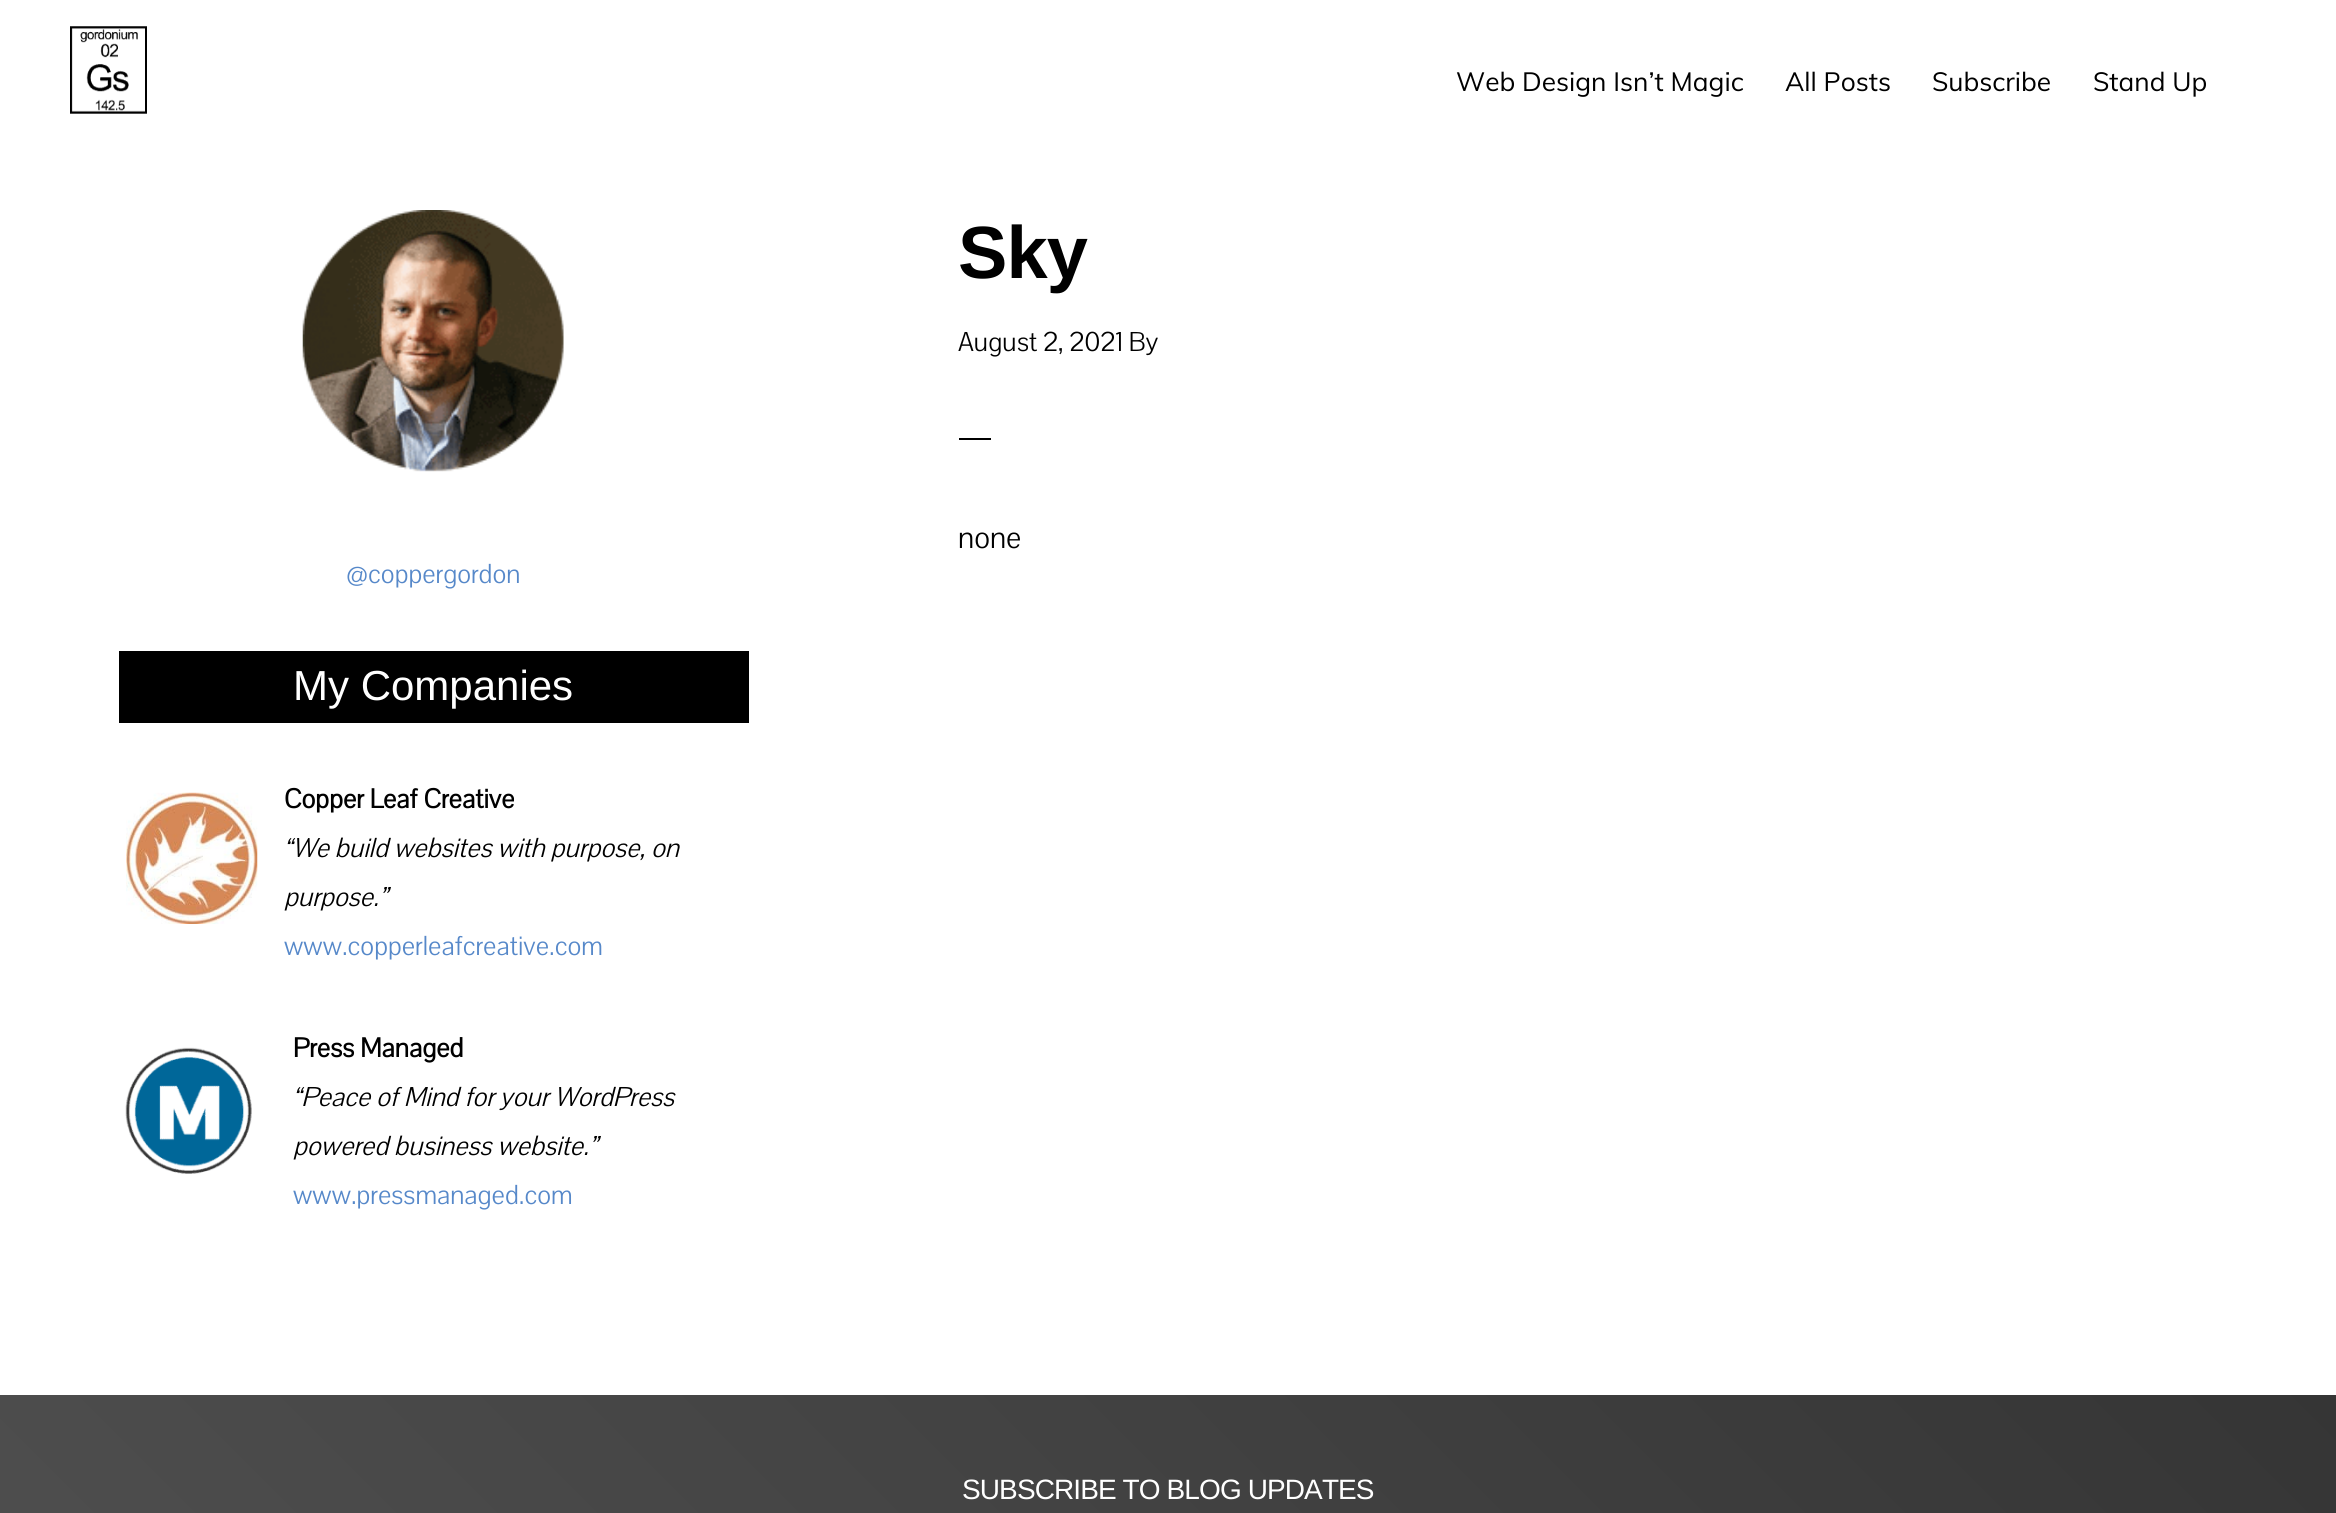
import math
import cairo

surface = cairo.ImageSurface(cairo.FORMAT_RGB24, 2336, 1513)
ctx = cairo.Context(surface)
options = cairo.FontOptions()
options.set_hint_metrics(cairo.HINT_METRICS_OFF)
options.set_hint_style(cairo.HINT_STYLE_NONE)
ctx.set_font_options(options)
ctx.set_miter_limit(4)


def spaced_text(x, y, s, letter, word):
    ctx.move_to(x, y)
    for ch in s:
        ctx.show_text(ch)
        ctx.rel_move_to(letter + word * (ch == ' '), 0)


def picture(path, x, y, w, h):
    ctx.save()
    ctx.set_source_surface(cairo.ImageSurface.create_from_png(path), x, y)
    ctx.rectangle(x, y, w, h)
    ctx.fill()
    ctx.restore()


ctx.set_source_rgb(1, 1, 1)
ctx.paint()
picture("img1.png", 70, 26, 77, 88)
ctx.select_font_face("Muli")
ctx.set_font_size(26.25)
ctx.set_source_rgb(0, 0, 0)
ctx.move_to(1456, 91)
ctx.show_text("Web Design Isn’t Magic")
ctx.move_to(1785, 91)
ctx.show_text("All Posts")
ctx.move_to(1932, 91)
ctx.show_text("Subscribe")
ctx.move_to(2093, 91)
ctx.show_text("Stand Up")
ctx.select_font_face("Liberation Sans", cairo.FONT_SLANT_NORMAL, cairo.FONT_WEIGHT_BOLD)
ctx.set_font_size(74)
spaced_text(958, 278, "Sky", -0.9, 0)
ctx.select_font_face("Pavanam")
ctx.set_font_size(28)
ctx.move_to(958, 351)
ctx.show_text("August 2, 2021 By")
ctx.rectangle(959, 438, 32, 2)
ctx.fill()
ctx.set_font_size(32)
ctx.move_to(958, 548)
ctx.show_text("none")
picture("img2.png", 302, 210, 262, 262)
ctx.set_font_size(28)
ctx.set_source_rgb(0.337, 0.533, 0.788)
ctx.move_to(346, 583)
ctx.show_text("@coppergordon")
ctx.set_source_rgb(0, 0, 0)
ctx.rectangle(119, 651, 630, 72)
ctx.fill()
ctx.select_font_face("Liberation Sans")
ctx.set_font_size(42)
ctx.set_source_rgb(1, 1, 1)
ctx.move_to(293, 700)
ctx.show_text("My Companies")
picture("img3.png", 126, 792, 132, 132)
ctx.select_font_face("Pavanam", cairo.FONT_SLANT_NORMAL, cairo.FONT_WEIGHT_BOLD)
ctx.set_font_size(28)
ctx.set_source_rgb(0, 0, 0)
ctx.move_to(284, 808)
ctx.show_text("Copper Leaf Creative")
ctx.select_font_face("Pavanam", cairo.FONT_SLANT_ITALIC)
ctx.move_to(284, 857)
ctx.show_text("“We build websites with purpose, on")
ctx.move_to(284, 906)
ctx.show_text("purpose.”")
ctx.select_font_face("Pavanam")
ctx.set_source_rgb(0.337, 0.533, 0.788)
ctx.move_to(284, 955)
ctx.show_text("www.copperleafcreative.com")
picture("img4.png", 125, 1047, 127, 127)
ctx.select_font_face("Pavanam", cairo.FONT_SLANT_NORMAL, cairo.FONT_WEIGHT_BOLD)
ctx.set_source_rgb(0, 0, 0)
ctx.move_to(293, 1057)
ctx.show_text("Press Managed")
ctx.select_font_face("Pavanam", cairo.FONT_SLANT_ITALIC)
ctx.move_to(293, 1106)
ctx.show_text("“Peace of Mind for your WordPress")
ctx.move_to(293, 1155)
ctx.show_text("powered business website.”")
ctx.select_font_face("Pavanam")
ctx.set_source_rgb(0.337, 0.533, 0.788)
ctx.move_to(293, 1204)
ctx.show_text("www.pressmanaged.com")
gradient = cairo.LinearGradient(392, 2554, 1944, 1002)
gradient.add_color_stop_rgba(0, 0.329, 0.329, 0.329, 1)
gradient.add_color_stop_rgba(1, 0.208, 0.208, 0.208, 1)
ctx.set_source(gradient)
ctx.rectangle(0, 1395, 2336, 118)
ctx.fill()
ctx.select_font_face("Liberation Sans")
ctx.set_source_rgb(1, 1, 1)
spaced_text(962, 1499, "SUBSCRIBE TO BLOG UPDATES", -0.9, 0)
surface.write_to_png("page.png")
